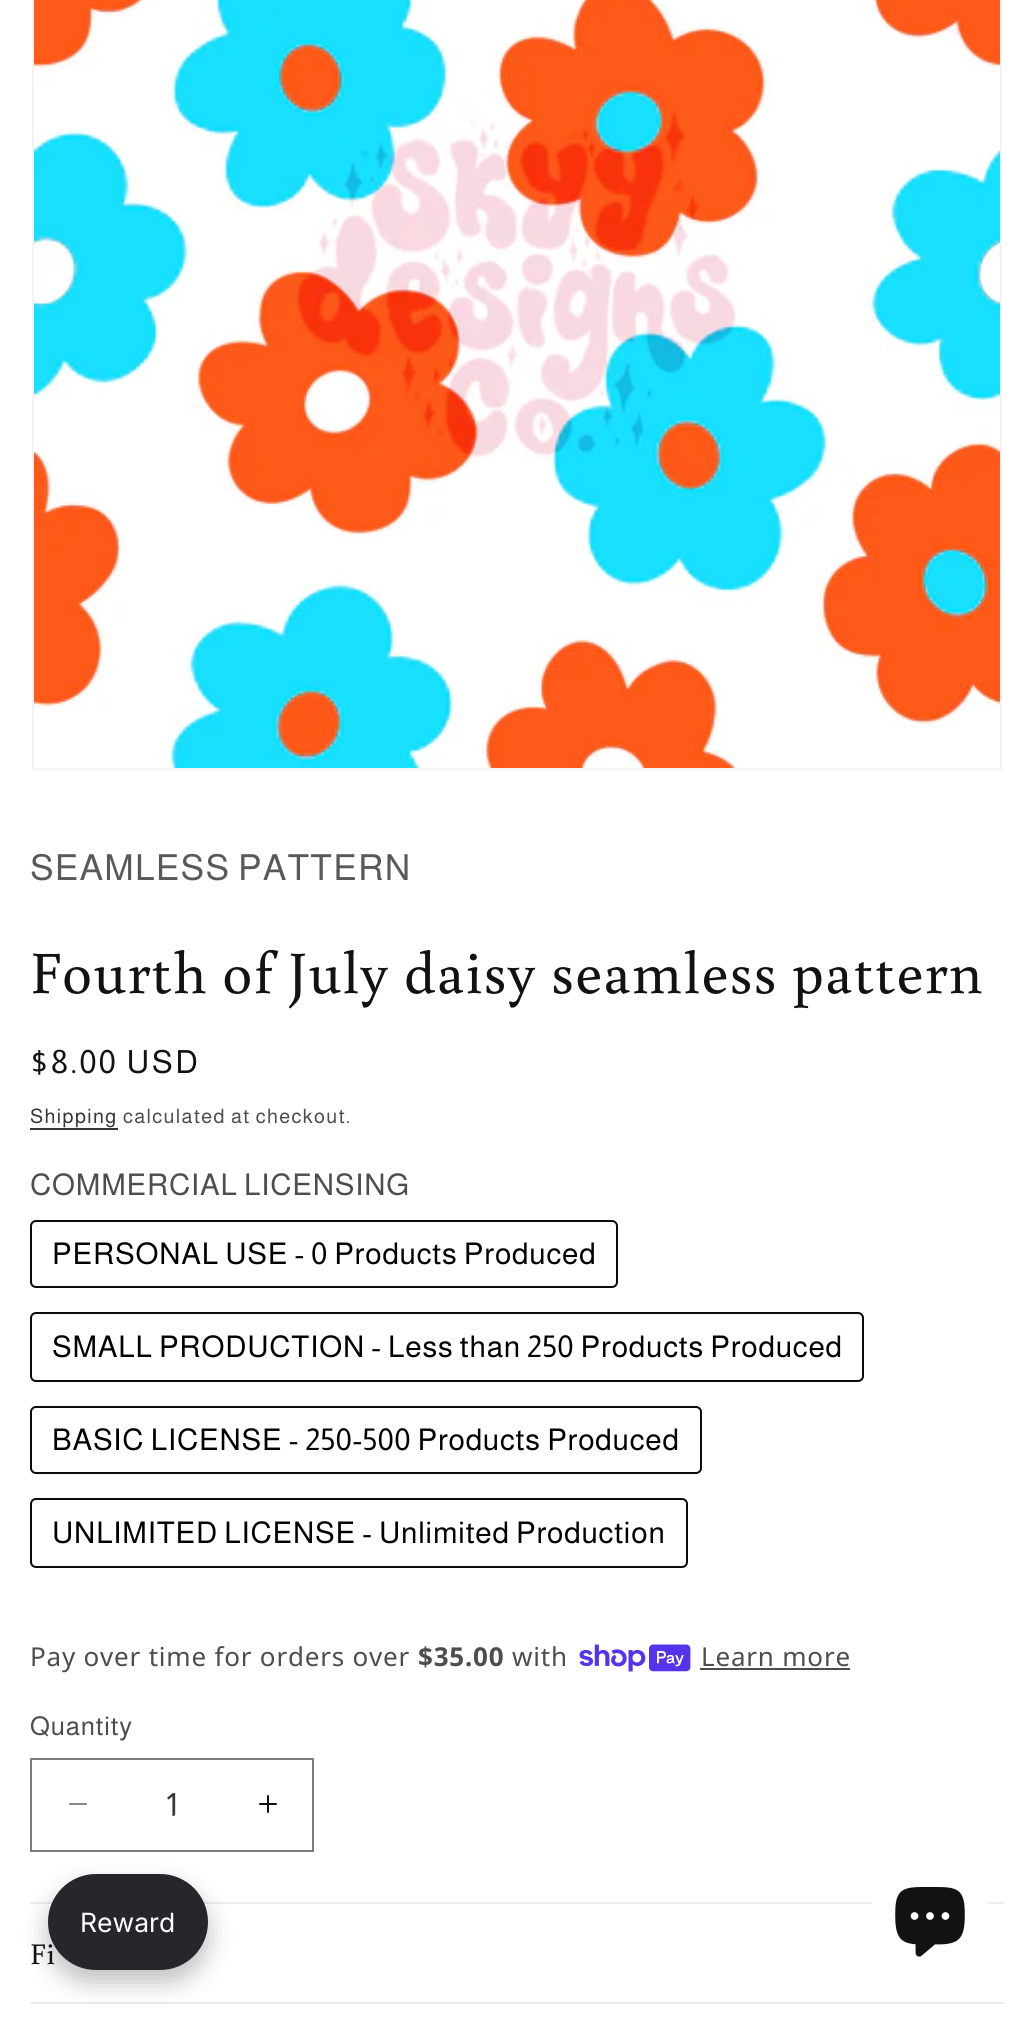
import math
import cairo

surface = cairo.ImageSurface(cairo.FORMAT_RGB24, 1034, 2017)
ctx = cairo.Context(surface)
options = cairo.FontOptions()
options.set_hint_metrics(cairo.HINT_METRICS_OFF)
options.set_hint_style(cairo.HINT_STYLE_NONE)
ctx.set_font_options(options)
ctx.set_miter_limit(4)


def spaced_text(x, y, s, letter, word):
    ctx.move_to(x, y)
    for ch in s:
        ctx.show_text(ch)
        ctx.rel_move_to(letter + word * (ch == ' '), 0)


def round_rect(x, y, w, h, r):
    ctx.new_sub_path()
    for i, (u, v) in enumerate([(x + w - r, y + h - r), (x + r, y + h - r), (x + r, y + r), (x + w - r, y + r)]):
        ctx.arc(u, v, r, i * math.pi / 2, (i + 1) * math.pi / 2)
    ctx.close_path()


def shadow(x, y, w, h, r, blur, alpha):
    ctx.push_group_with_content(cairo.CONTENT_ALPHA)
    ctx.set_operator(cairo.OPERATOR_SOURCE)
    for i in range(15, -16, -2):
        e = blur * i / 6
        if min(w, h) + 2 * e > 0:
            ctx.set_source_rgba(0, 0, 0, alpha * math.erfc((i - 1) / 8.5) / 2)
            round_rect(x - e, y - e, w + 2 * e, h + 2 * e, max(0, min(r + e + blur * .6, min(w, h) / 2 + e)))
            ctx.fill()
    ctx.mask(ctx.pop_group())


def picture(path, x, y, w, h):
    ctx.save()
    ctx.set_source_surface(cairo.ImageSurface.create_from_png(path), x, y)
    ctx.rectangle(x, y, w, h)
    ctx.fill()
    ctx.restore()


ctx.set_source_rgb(1, 1, 1)
ctx.paint()
ctx.rectangle(33, -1, 968, 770)
ctx.set_source_rgb(0.953, 0.953, 0.953)
ctx.stroke()
picture("img1.png", 34, 0, 966, 768)
ctx.select_font_face("Almarai")
ctx.set_font_size(36)
ctx.set_source_rgb(0.349, 0.349, 0.349)
spaced_text(30, 880, "SEAMLESS PATTERN", 1.2, 0)
ctx.select_font_face("Buenard")
ctx.set_font_size(60)
ctx.set_source_rgb(0.071, 0.071, 0.071)
spaced_text(30, 993, "Fourth of July daisy seamless pattern", 1.2, 0)
ctx.select_font_face("Almarai")
ctx.set_font_size(32)
spaced_text(30, 1073, "$8.00 USD", 2.5, 0)
ctx.set_font_size(20)
ctx.set_source_rgb(0.212, 0.212, 0.212)
spaced_text(30, 1123, "Shipping", 1.4, 0)
ctx.rectangle(30, 1128, 88, 2)
ctx.fill()
ctx.set_source_rgb(0.302, 0.302, 0.302)
spaced_text(123, 1123, "calculated at checkout.", 1.4, 0)
ctx.set_font_size(30)
spaced_text(30, 1195, "COMMERCIAL LICENSING", 0.8, 0)
round_rect(31, 1221, 586, 66, 5)
ctx.set_source_rgb(0.043, 0.043, 0.043)
ctx.stroke()
ctx.set_source_rgb(0, 0, 0)
spaced_text(52, 1264, "PERSONAL USE - 0 Products Produced", 0.8, 0)
round_rect(31, 1313, 832, 68, 5)
ctx.set_source_rgb(0.043, 0.043, 0.043)
ctx.stroke()
ctx.set_source_rgb(0, 0, 0)
spaced_text(52, 1357, "SMALL PRODUCTION - Less than 250 Products Produced", 0.8, 0)
round_rect(31, 1407, 670, 66, 5)
ctx.set_source_rgb(0.043, 0.043, 0.043)
ctx.stroke()
ctx.set_source_rgb(0, 0, 0)
spaced_text(52, 1450, "BASIC LICENSE - 250-500 Products Produced", 0.8, 0)
round_rect(31, 1499, 656, 68, 5)
ctx.set_source_rgb(0.043, 0.043, 0.043)
ctx.stroke()
ctx.set_source_rgb(0, 0, 0)
spaced_text(52, 1543, "UNLIMITED LICENSE - Unlimited Production", 0.8, 0)
ctx.select_font_face("Noto Sans")
ctx.set_font_size(26)
ctx.set_source_rgb(0.302, 0.302, 0.302)
spaced_text(30, 1666, "Pay over time for orders over", 0.8, 0)
ctx.select_font_face("Noto Sans", cairo.FONT_SLANT_NORMAL, cairo.FONT_WEIGHT_BOLD)
spaced_text(418, 1666, "$35.00", 0.8, 0)
ctx.select_font_face("Noto Sans")
spaced_text(512, 1666, "with", 0.8, 0)
picture("img2.png", 579, 1644, 112, 28)
spaced_text(701, 1666, "Learn more", 0.8, 0)
ctx.rectangle(700, 1668, 150, 2)
ctx.fill()
ctx.select_font_face("Almarai")
spaced_text(30, 1735, "Quantity", 0.8, 0)
picture("img3.png", 69, 1803, 18, 2)
picture("img4.png", 259, 1795, 18, 18)
ctx.rectangle(31, 1759, 282, 92)
ctx.set_source_rgb(0.49, 0.49, 0.49)
ctx.stroke()
ctx.set_font_size(32)
ctx.set_source_rgb(0.212, 0.212, 0.212)
ctx.move_to(166, 1816)
ctx.show_text("1")
ctx.set_source_rgb(0.925, 0.925, 0.925)
ctx.rectangle(30, 1902, 974, 2)
ctx.fill()
ctx.rectangle(30, 2002, 974, 2)
ctx.fill()
ctx.select_font_face("Buenard")
ctx.set_font_size(30)
ctx.set_source_rgb(0.071, 0.071, 0.071)
spaced_text(30, 1964, "Fi", 1.2, 0)
ctx.set_source_rgb(0, 0, 0)
shadow(48, 1886, 160, 96, 48, 12, 0.25)
ctx.set_source_rgb(0.145, 0.153, 0.173)
round_rect(48, 1874, 160, 96, 48)
ctx.fill()
ctx.select_font_face("Inter")
ctx.set_font_size(26.5)
ctx.set_source_rgb(1, 1, 1)
ctx.move_to(80, 1932)
ctx.show_text("Reward")
ctx.new_path()
ctx.arc(930, 1916, 60, 0, 2 * math.pi)
ctx.fill()
picture("img5.png", 895, 1887, 70, 70)
surface.write_to_png("page.png")
